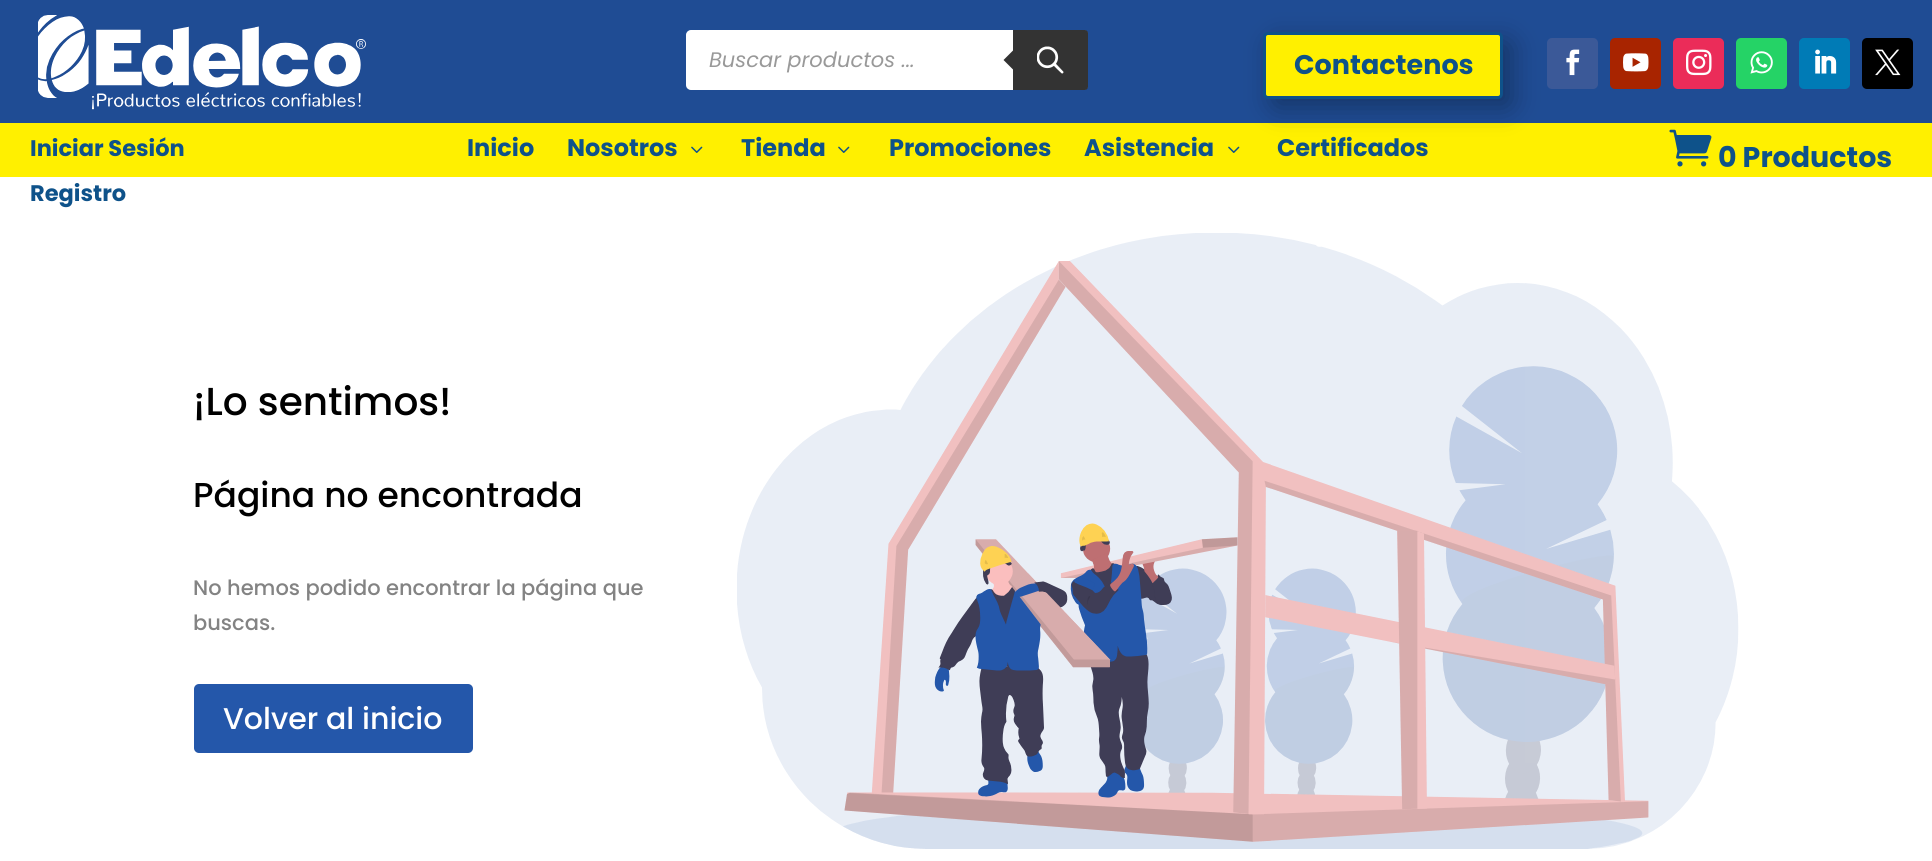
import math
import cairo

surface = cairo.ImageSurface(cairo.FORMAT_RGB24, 1932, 861)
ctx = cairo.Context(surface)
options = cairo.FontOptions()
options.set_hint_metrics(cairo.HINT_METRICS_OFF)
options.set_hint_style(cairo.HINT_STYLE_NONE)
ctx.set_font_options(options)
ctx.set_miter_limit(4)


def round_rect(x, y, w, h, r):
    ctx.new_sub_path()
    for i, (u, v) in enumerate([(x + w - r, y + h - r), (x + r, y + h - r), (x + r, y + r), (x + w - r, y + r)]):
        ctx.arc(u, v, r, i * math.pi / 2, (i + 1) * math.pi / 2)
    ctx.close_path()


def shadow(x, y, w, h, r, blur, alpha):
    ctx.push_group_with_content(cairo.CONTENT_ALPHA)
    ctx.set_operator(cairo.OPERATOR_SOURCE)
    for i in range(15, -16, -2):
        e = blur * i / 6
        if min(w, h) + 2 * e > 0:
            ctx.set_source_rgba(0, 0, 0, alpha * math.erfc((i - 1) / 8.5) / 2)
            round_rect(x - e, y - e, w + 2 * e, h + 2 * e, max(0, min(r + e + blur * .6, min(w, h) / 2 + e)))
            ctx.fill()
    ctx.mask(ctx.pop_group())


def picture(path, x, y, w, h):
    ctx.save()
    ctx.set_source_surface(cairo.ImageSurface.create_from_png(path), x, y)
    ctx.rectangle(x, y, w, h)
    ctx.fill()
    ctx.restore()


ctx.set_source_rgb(1, 1, 1)
ctx.paint()
ctx.set_source_rgb(0.122, 0.298, 0.58)
ctx.rectangle(0, 0, 1932, 123)
ctx.fill()
picture("img1.png", 38, 15, 328, 95)
ctx.set_source_rgb(1, 1, 1)
round_rect(687, 31, 400, 58, 4)
ctx.fill_preserve()
ctx.stroke()
ctx.select_font_face("Poppins", cairo.FONT_SLANT_ITALIC)
ctx.set_font_size(21)
ctx.set_source_rgb(0.6, 0.6, 0.6)
ctx.move_to(709, 67)
ctx.show_text("Buscar productos ...")
ctx.set_source_rgb(0.2, 0.2, 0.2)
ctx.new_path()
ctx.move_to(1013, 30)
ctx.line_to(1085, 30)
ctx.curve_to(1086.5, 30, 1088, 31.5, 1088, 33)
ctx.line_to(1088, 87)
ctx.curve_to(1088, 88.5, 1086.5, 90, 1085, 90)
ctx.line_to(1013, 90)
ctx.close_path()
ctx.fill()
ctx.new_path()
ctx.move_to(1015.5, 48)
ctx.line_to(1015.5, 72)
ctx.line_to(1003.5, 60)
ctx.close_path()
ctx.fill()
picture("img2.png", 1037, 46, 27, 28)
ctx.set_source_rgb(1, 0.941, 0)
ctx.rectangle(0, 123, 1932, 54)
ctx.fill()
ctx.set_source_rgb(0, 0, 0)
shadow(1272, 41, 240, 67, 5, 13.5, 0.3)
ctx.set_source_rgb(1, 0.941, 0)
round_rect(1264.5, 33.5, 237, 64, 3.5)
ctx.fill_preserve()
ctx.set_source_rgb(0.055, 0.322, 0.541)
ctx.set_line_width(3)
ctx.stroke()
ctx.select_font_face("Poppins", cairo.FONT_SLANT_NORMAL, cairo.FONT_WEIGHT_BOLD)
ctx.set_font_size(27)
ctx.move_to(1294, 74)
ctx.show_text("Contactenos")
ctx.set_source_rgb(0.231, 0.349, 0.596)
round_rect(1547, 38, 51, 51, 5)
ctx.fill()
picture("img3.png", 1566, 49, 14, 27)
ctx.set_source_rgb(0.659, 0.141, 0)
round_rect(1610, 38, 51, 51, 5)
ctx.fill()
picture("img4.png", 1623, 53, 26, 19)
ctx.set_source_rgb(0.918, 0.173, 0.349)
round_rect(1673, 38, 51, 51, 5)
ctx.fill()
picture("img5.png", 1686, 49, 26, 27)
ctx.set_source_rgb(0.145, 0.827, 0.4)
round_rect(1736, 38, 51, 51, 5)
ctx.fill()
picture("img6.png", 1750, 51, 23, 23)
ctx.set_source_rgb(0, 0.482, 0.714)
round_rect(1799, 38, 51, 51, 5)
ctx.fill()
picture("img7.png", 1815, 49, 22, 25)
ctx.set_source_rgb(0, 0, 0)
round_rect(1862, 38, 51, 51, 5)
ctx.fill()
picture("img8.png", 1875, 49, 26, 27)
ctx.set_font_size(22.5)
ctx.set_source_rgb(0.055, 0.322, 0.541)
ctx.move_to(30, 156)
ctx.show_text("Iniciar Sesión")
ctx.move_to(30, 201)
ctx.show_text("Registro")
ctx.set_font_size(24)
ctx.move_to(467, 156)
ctx.show_text("Inicio")
ctx.move_to(567, 156)
ctx.show_text("Nosotros")
picture("img9.png", 691, 146, 12, 7)
ctx.move_to(741, 156)
ctx.show_text("Tienda")
picture("img9.png", 838, 146, 12, 7)
ctx.move_to(889, 156)
ctx.show_text("Promociones")
ctx.move_to(1084, 156)
ctx.show_text("Asistencia")
picture("img9.png", 1228, 146, 12, 7)
ctx.move_to(1277, 156)
ctx.show_text("Certificados")
picture("img10.png", 1669, 129, 43, 38)
ctx.set_font_size(28.5)
ctx.move_to(1718, 167)
ctx.show_text("0 Productos")
ctx.select_font_face("Poppins Medium")
ctx.set_font_size(39)
ctx.set_source_rgb(0, 0, 0)
ctx.move_to(193, 415)
ctx.show_text("¡Lo sentimos!")
ctx.set_font_size(34.5)
ctx.move_to(193, 507)
ctx.show_text("Página no encontrada")
ctx.set_font_size(21)
ctx.set_source_rgb(0.514, 0.514, 0.514)
ctx.move_to(193, 595)
ctx.show_text("No hemos podido encontrar la página que")
ctx.move_to(193, 630)
ctx.show_text("buscas.")
ctx.set_source_rgb(0.141, 0.341, 0.667)
round_rect(194, 684, 279, 69, 5)
ctx.fill()
ctx.set_font_size(30)
ctx.set_source_rgb(1, 1, 1)
ctx.move_to(223, 729)
ctx.show_text("Volver al inicio")
picture("img11.png", 737, 233, 1002, 616)
surface.write_to_png("page.png")
